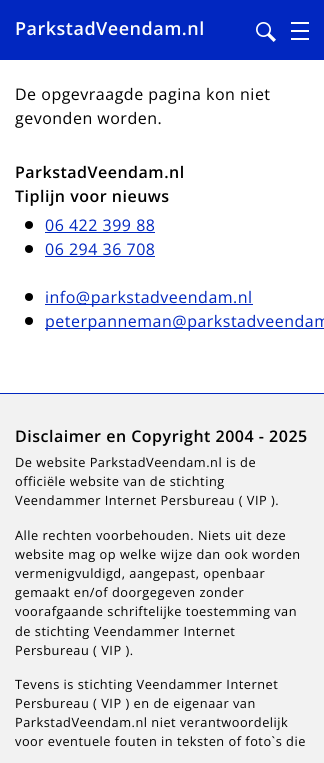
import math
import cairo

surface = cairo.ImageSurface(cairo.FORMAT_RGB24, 324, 763)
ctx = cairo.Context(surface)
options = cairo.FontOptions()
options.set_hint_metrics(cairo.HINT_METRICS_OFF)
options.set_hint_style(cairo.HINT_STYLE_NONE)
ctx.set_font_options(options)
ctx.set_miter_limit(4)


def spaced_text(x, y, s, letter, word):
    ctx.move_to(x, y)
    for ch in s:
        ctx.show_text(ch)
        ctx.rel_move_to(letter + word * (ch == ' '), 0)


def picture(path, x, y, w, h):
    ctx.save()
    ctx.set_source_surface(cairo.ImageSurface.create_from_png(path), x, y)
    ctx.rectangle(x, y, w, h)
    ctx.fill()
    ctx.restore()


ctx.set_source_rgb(1, 1, 1)
ctx.paint()
ctx.set_source_rgb(0.004, 0.153, 0.753)
ctx.rectangle(0, 0, 324, 60)
ctx.fill()
ctx.select_font_face("Open Sans SemiBold")
ctx.set_font_size(18)
ctx.set_source_rgb(1, 1, 1)
spaced_text(15, 35, "ParkstadVeendam.nl", 0.5, 0)
picture("img1.png", 256, 22, 20, 20)
ctx.rectangle(291, 30, 18, 2)
ctx.fill()
ctx.rectangle(291, 22, 18, 2)
ctx.fill()
ctx.rectangle(291, 38, 18, 2)
ctx.fill()
ctx.select_font_face("Open Sans")
ctx.set_font_size(16)
ctx.set_source_rgb(0, 0, 0)
spaced_text(15, 100, "De opgevraagde pagina kon niet", 0.5, 0)
spaced_text(15, 124, "gevonden worden.", 0.5, 0)
ctx.select_font_face("Open Sans SemiBold")
spaced_text(15, 178, "ParkstadVeendam.nl", 0.5, 0)
spaced_text(15, 202, "Tiplijn voor nieuws", 0.5, 0)
ctx.new_path()
ctx.arc(29, 225, 4, 0, 2 * math.pi)
ctx.fill()
ctx.select_font_face("Open Sans")
ctx.set_source_rgb(0.004, 0.153, 0.753)
spaced_text(45, 231, "06 422 399 88", 0.5, 0)
ctx.rectangle(45, 232, 110, 1)
ctx.fill()
ctx.set_source_rgb(0, 0, 0)
ctx.arc(29, 249, 4, 0, 2 * math.pi)
ctx.fill()
ctx.set_source_rgb(0.004, 0.153, 0.753)
spaced_text(45, 255, "06 294 36 708", 0.5, 0)
ctx.rectangle(45, 256, 110, 1)
ctx.fill()
ctx.set_source_rgb(0, 0, 0)
ctx.arc(29, 297, 4, 0, 2 * math.pi)
ctx.fill()
ctx.set_source_rgb(0.004, 0.153, 0.753)
ctx.rectangle(45, 304, 208, 1)
ctx.fill()
spaced_text(45, 303, "info@parkstadveendam.nl", 0.5, 0)
ctx.set_source_rgb(0, 0, 0)
ctx.new_path()
ctx.arc(29, 321, 4, 0, 2 * math.pi)
ctx.fill()
ctx.set_source_rgb(0.004, 0.153, 0.753)
ctx.rectangle(45, 328, 279, 1)
ctx.fill()
spaced_text(45, 327, "peterpanneman@parkstadveendam", 0.5, 0)
ctx.set_source_rgb(0.949, 0.949, 0.949)
ctx.rectangle(0, 394, 324, 369)
ctx.fill()
ctx.set_source_rgb(0.004, 0.153, 0.753)
ctx.rectangle(0, 393, 324, 1)
ctx.fill()
ctx.select_font_face("Open Sans SemiBold")
ctx.set_source_rgb(0, 0, 0)
spaced_text(15, 442, "Disclaimer en Copyright 2004 - 2025", 0.5, 0)
ctx.select_font_face("Open Sans")
ctx.set_font_size(12.8)
spaced_text(15, 467, "De website ParkstadVeendam.nl is de", 0.5, 0)
spaced_text(15, 486, "officiële website van de stichting", 0.5, 0)
spaced_text(15, 505, "Veendammer Internet Persbureau ( VIP ).", 0.5, 0)
spaced_text(15, 540, "Alle rechten voorbehouden. Niets uit deze", 0.5, 0)
spaced_text(15, 559, "website mag op welke wijze dan ook worden", 0.5, 0)
spaced_text(15, 578, "vermenigvuldigd, aangepast, openbaar", 0.5, 0)
spaced_text(15, 597, "gemaakt en/of doorgegeven zonder", 0.5, 0)
spaced_text(15, 616, "voorafgaande schriftelijke toestemming van", 0.5, 0)
spaced_text(15, 636, "de stichting Veendammer Internet", 0.5, 0)
spaced_text(15, 655, "Persbureau ( VIP ).", 0.5, 0)
spaced_text(15, 689, "Tevens is stichting Veendammer Internet", 0.5, 0)
spaced_text(15, 708, "Persbureau ( VIP ) en de eigenaar van", 0.5, 0)
spaced_text(15, 727, "ParkstadVeendam.nl niet verantwoordelijk", 0.5, 0)
spaced_text(15, 746, "voor eventuele fouten in teksten of foto`s die", 0.5, 0)
surface.write_to_png("page.png")
